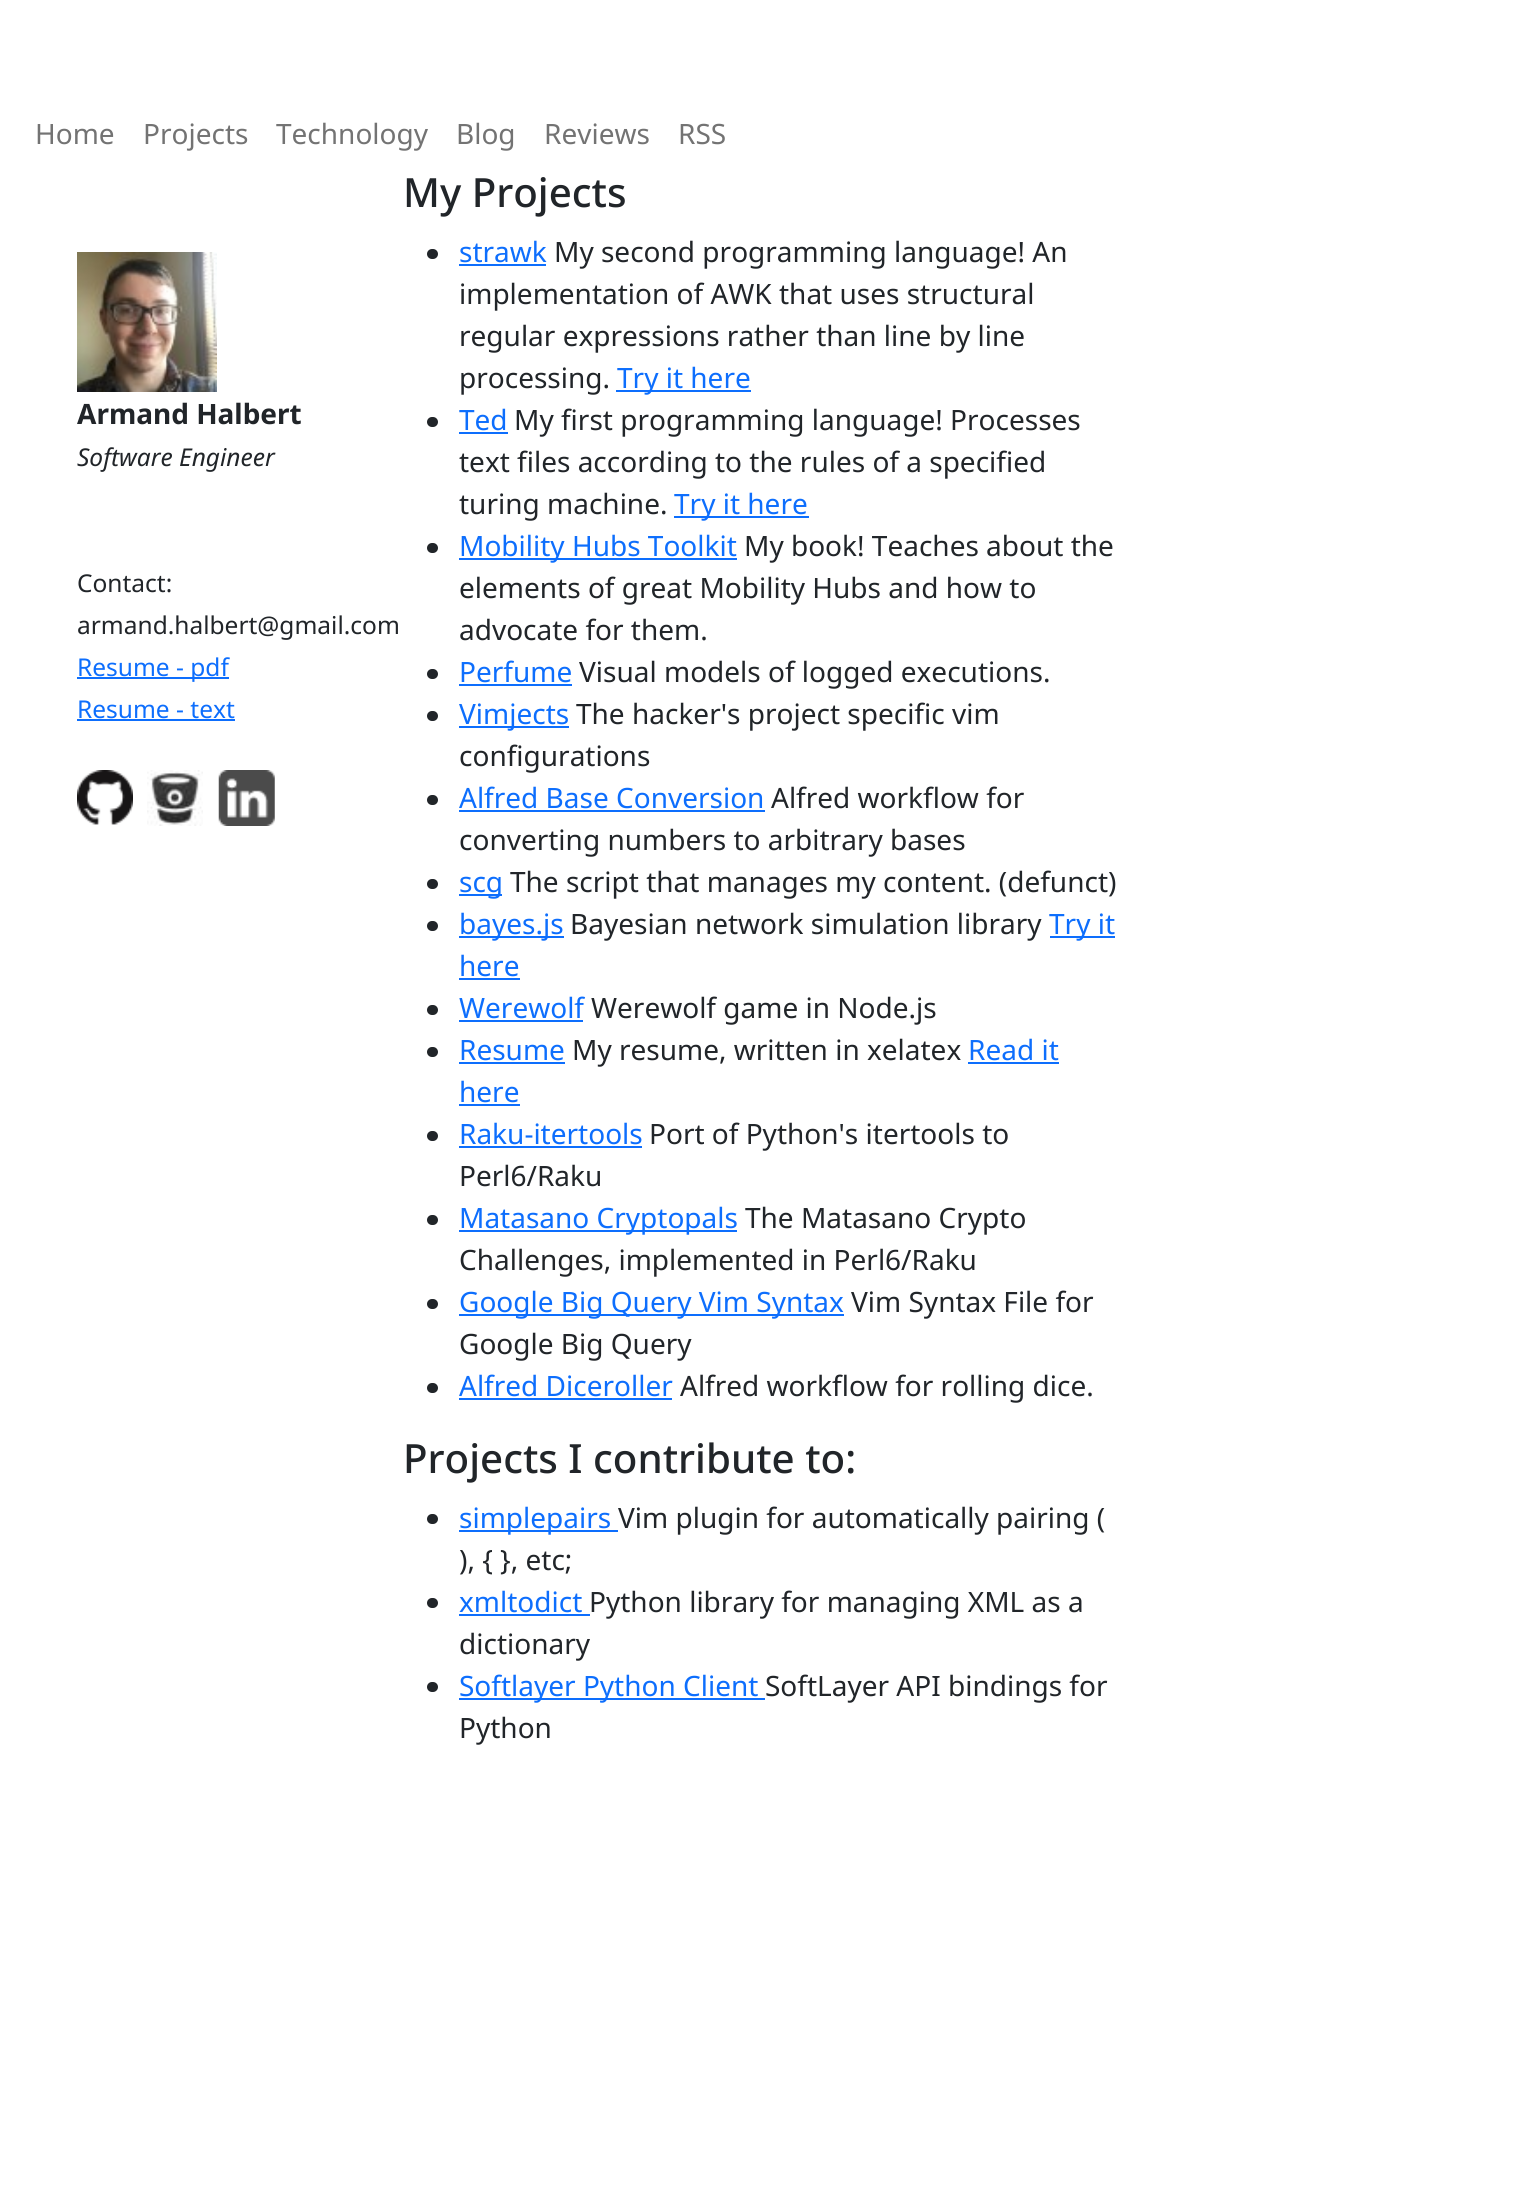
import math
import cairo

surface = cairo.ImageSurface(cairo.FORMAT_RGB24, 1525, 2201)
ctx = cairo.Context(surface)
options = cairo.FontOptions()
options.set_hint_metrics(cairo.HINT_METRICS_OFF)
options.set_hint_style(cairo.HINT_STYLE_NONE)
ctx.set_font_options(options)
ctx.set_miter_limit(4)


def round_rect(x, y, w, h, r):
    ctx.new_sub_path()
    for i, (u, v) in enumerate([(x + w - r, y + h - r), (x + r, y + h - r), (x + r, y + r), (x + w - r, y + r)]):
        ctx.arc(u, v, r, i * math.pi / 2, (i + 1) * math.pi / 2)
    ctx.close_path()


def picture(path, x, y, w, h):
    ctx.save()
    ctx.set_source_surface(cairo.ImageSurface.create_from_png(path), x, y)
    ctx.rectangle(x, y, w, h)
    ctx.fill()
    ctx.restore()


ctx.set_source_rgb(1, 1, 1)
ctx.paint()
ctx.select_font_face("Noto Sans")
ctx.set_font_size(28)
ctx.set_source_rgb(0.451, 0.451, 0.451)
ctx.move_to(35, 144)
ctx.show_text("Home")
ctx.move_to(143, 144)
ctx.show_text("Projects")
ctx.move_to(276, 144)
ctx.show_text("Technology")
ctx.move_to(456, 144)
ctx.show_text("Blog")
ctx.move_to(544, 144)
ctx.show_text("Reviews")
ctx.move_to(678, 144)
ctx.show_text("RSS")
picture("img1.png", 77, 252, 140, 140)
ctx.select_font_face("Noto Sans", cairo.FONT_SLANT_NORMAL, cairo.FONT_WEIGHT_BOLD)
ctx.set_source_rgb(0.129, 0.145, 0.161)
ctx.move_to(77, 424)
ctx.show_text("Armand Halbert")
ctx.select_font_face("Noto Sans", cairo.FONT_SLANT_ITALIC)
ctx.set_font_size(24.5)
ctx.move_to(77, 466)
ctx.show_text("Software Engineer")
ctx.select_font_face("Noto Sans")
ctx.move_to(77, 592)
ctx.show_text("Contact:")
ctx.move_to(77, 634)
ctx.show_text("armand.halbert@gmail.com")
ctx.set_source_rgb(0.051, 0.431, 0.992)
ctx.rectangle(77, 677, 152, 2)
ctx.fill()
ctx.move_to(77, 676)
ctx.show_text("Resume - pdf")
ctx.move_to(77, 718)
ctx.show_text("Resume - text")
ctx.rectangle(77, 719, 158, 2)
ctx.fill()
picture("img2.png", 77, 770, 56, 55)
picture("img3.png", 147, 770, 56, 56)
picture("img4.png", 218, 770, 57, 56)
ctx.select_font_face("Noto Sans Medium")
ctx.set_font_size(40.25)
ctx.set_source_rgb(0.129, 0.145, 0.161)
ctx.move_to(403, 207)
ctx.show_text("My Projects")
round_rect(427, 249, 11, 10, 5)
ctx.fill()
ctx.select_font_face("Noto Sans")
ctx.set_font_size(28)
ctx.set_source_rgb(0.051, 0.431, 0.992)
ctx.move_to(459, 262)
ctx.show_text("strawk")
ctx.rectangle(459, 264, 87, 2)
ctx.fill()
ctx.set_source_rgb(0.129, 0.145, 0.161)
ctx.move_to(554, 262)
ctx.show_text("My second programming language! An")
ctx.move_to(459, 304)
ctx.show_text("implementation of AWK that uses structural")
ctx.move_to(459, 346)
ctx.show_text("regular expressions rather than line by line")
ctx.move_to(459, 388)
ctx.show_text("processing.")
ctx.set_source_rgb(0.051, 0.431, 0.992)
ctx.rectangle(616, 390, 135, 2)
ctx.fill()
ctx.move_to(617, 388)
ctx.show_text("Try it here")
ctx.set_source_rgb(0.129, 0.145, 0.161)
round_rect(427, 417, 11, 10, 5)
ctx.fill()
ctx.set_source_rgb(0.051, 0.431, 0.992)
ctx.move_to(459, 430)
ctx.show_text("Ted")
ctx.rectangle(459, 432, 49, 2)
ctx.fill()
ctx.set_source_rgb(0.129, 0.145, 0.161)
ctx.move_to(514, 430)
ctx.show_text("My first programming language! Processes")
ctx.move_to(459, 472)
ctx.show_text("text files according to the rules of a specified")
ctx.move_to(459, 514)
ctx.show_text("turing machine.")
ctx.set_source_rgb(0.051, 0.431, 0.992)
ctx.rectangle(674, 516, 135, 2)
ctx.fill()
ctx.move_to(674, 514)
ctx.show_text("Try it here")
ctx.set_source_rgb(0.129, 0.145, 0.161)
round_rect(427, 543, 11, 10, 5)
ctx.fill()
ctx.set_source_rgb(0.051, 0.431, 0.992)
ctx.rectangle(459, 558, 278, 2)
ctx.fill()
ctx.move_to(459, 556)
ctx.show_text("Mobility Hubs Toolkit")
ctx.set_source_rgb(0.129, 0.145, 0.161)
ctx.move_to(744, 556)
ctx.show_text("My book! Teaches about the")
ctx.move_to(459, 598)
ctx.show_text("elements of great Mobility Hubs and how to")
ctx.move_to(459, 640)
ctx.show_text("advocate for them.")
round_rect(427, 669, 11, 10, 5)
ctx.fill()
ctx.set_source_rgb(0.051, 0.431, 0.992)
ctx.move_to(459, 682)
ctx.show_text("Perfume")
ctx.rectangle(459, 684, 113, 2)
ctx.fill()
ctx.set_source_rgb(0.129, 0.145, 0.161)
ctx.move_to(579, 682)
ctx.show_text("Visual models of logged executions.")
round_rect(427, 711, 11, 10, 5)
ctx.fill()
ctx.set_source_rgb(0.051, 0.431, 0.992)
ctx.rectangle(459, 726, 110, 2)
ctx.fill()
ctx.move_to(459, 724)
ctx.show_text("Vimjects")
ctx.set_source_rgb(0.129, 0.145, 0.161)
ctx.move_to(576, 724)
ctx.show_text("The hacker's project specific vim")
ctx.move_to(459, 766)
ctx.show_text("configurations")
round_rect(427, 795, 11, 10, 5)
ctx.fill()
ctx.set_source_rgb(0.051, 0.431, 0.992)
ctx.move_to(459, 808)
ctx.show_text("Alfred Base Conversion")
ctx.rectangle(459, 810, 306, 2)
ctx.fill()
ctx.set_source_rgb(0.129, 0.145, 0.161)
ctx.move_to(771, 808)
ctx.show_text("Alfred workflow for")
ctx.move_to(459, 850)
ctx.show_text("converting numbers to arbitrary bases")
round_rect(427, 879, 11, 10, 5)
ctx.fill()
ctx.set_source_rgb(0.051, 0.431, 0.992)
ctx.rectangle(459, 894, 43, 2)
ctx.fill()
ctx.move_to(459, 892)
ctx.show_text("scg")
ctx.set_source_rgb(0.129, 0.145, 0.161)
ctx.move_to(510, 892)
ctx.show_text("The script that manages my content. (defunct)")
round_rect(427, 921, 11, 10, 5)
ctx.fill()
ctx.set_source_rgb(0.051, 0.431, 0.992)
ctx.rectangle(459, 936, 105, 2)
ctx.fill()
ctx.move_to(459, 934)
ctx.show_text("bayes.js")
ctx.set_source_rgb(0.129, 0.145, 0.161)
ctx.move_to(570, 934)
ctx.show_text("Bayesian network simulation library")
ctx.set_source_rgb(0.051, 0.431, 0.992)
ctx.rectangle(1050, 936, 65, 2)
ctx.fill()
ctx.move_to(1049, 934)
ctx.show_text("Try it")
ctx.move_to(459, 976)
ctx.show_text("here")
ctx.rectangle(459, 978, 61, 2)
ctx.fill()
ctx.set_source_rgb(0.129, 0.145, 0.161)
round_rect(427, 1005, 11, 10, 5)
ctx.fill()
ctx.set_source_rgb(0.051, 0.431, 0.992)
ctx.move_to(459, 1018)
ctx.show_text("Werewolf")
ctx.rectangle(459, 1020, 124, 2)
ctx.fill()
ctx.set_source_rgb(0.129, 0.145, 0.161)
ctx.move_to(591, 1018)
ctx.show_text("Werewolf game in Node.js")
round_rect(427, 1047, 11, 10, 5)
ctx.fill()
ctx.set_source_rgb(0.051, 0.431, 0.992)
ctx.move_to(459, 1060)
ctx.show_text("Resume")
ctx.rectangle(459, 1062, 106, 2)
ctx.fill()
ctx.set_source_rgb(0.129, 0.145, 0.161)
ctx.move_to(572, 1060)
ctx.show_text("My resume, written in xelatex")
ctx.set_source_rgb(0.051, 0.431, 0.992)
ctx.move_to(968, 1060)
ctx.show_text("Read it")
ctx.rectangle(968, 1062, 91, 2)
ctx.fill()
ctx.move_to(459, 1102)
ctx.show_text("here")
ctx.rectangle(459, 1104, 61, 2)
ctx.fill()
ctx.set_source_rgb(0.129, 0.145, 0.161)
round_rect(427, 1131, 11, 10, 5)
ctx.fill()
ctx.set_source_rgb(0.051, 0.431, 0.992)
ctx.move_to(459, 1144)
ctx.show_text("Raku-itertools")
ctx.rectangle(459, 1146, 183, 2)
ctx.fill()
ctx.set_source_rgb(0.129, 0.145, 0.161)
ctx.move_to(649, 1144)
ctx.show_text("Port of Python's itertools to")
ctx.move_to(459, 1186)
ctx.show_text("Perl6/Raku")
round_rect(427, 1215, 11, 10, 5)
ctx.fill()
ctx.set_source_rgb(0.051, 0.431, 0.992)
ctx.rectangle(459, 1230, 278, 2)
ctx.fill()
ctx.move_to(459, 1228)
ctx.show_text("Matasano Cryptopals")
ctx.set_source_rgb(0.129, 0.145, 0.161)
ctx.move_to(745, 1228)
ctx.show_text("The Matasano Crypto")
ctx.move_to(459, 1270)
ctx.show_text("Challenges, implemented in Perl6/Raku")
round_rect(427, 1299, 11, 10, 5)
ctx.fill()
ctx.set_source_rgb(0.051, 0.431, 0.992)
ctx.rectangle(459, 1314, 385, 2)
ctx.fill()
ctx.move_to(459, 1312)
ctx.show_text("Google Big Query Vim Syntax")
ctx.set_source_rgb(0.129, 0.145, 0.161)
ctx.move_to(851, 1312)
ctx.show_text("Vim Syntax File for")
ctx.move_to(459, 1354)
ctx.show_text("Google Big Query")
round_rect(427, 1383, 11, 10, 5)
ctx.fill()
ctx.set_source_rgb(0.051, 0.431, 0.992)
ctx.move_to(459, 1396)
ctx.show_text("Alfred Diceroller")
ctx.rectangle(459, 1398, 213, 2)
ctx.fill()
ctx.set_source_rgb(0.129, 0.145, 0.161)
ctx.move_to(680, 1396)
ctx.show_text("Alfred workflow for rolling dice.")
ctx.select_font_face("Noto Sans Medium")
ctx.set_font_size(40.25)
ctx.move_to(403, 1473)
ctx.show_text("Projects I contribute to:")
round_rect(427, 1514, 11, 10, 5)
ctx.fill()
ctx.set_source_rgb(0.051, 0.431, 0.992)
ctx.rectangle(459, 1530, 159, 2)
ctx.fill()
ctx.select_font_face("Noto Sans")
ctx.set_font_size(28)
ctx.move_to(459, 1528)
ctx.show_text("simplepairs")
ctx.set_source_rgb(0.129, 0.145, 0.161)
ctx.move_to(618, 1528)
ctx.show_text("Vim plugin for automatically pairing (")
ctx.move_to(459, 1570)
ctx.show_text("), { }, etc;")
round_rect(427, 1598, 11, 10, 5)
ctx.fill()
ctx.set_source_rgb(0.051, 0.431, 0.992)
ctx.move_to(459, 1612)
ctx.show_text("xmltodict")
ctx.rectangle(459, 1614, 131, 2)
ctx.fill()
ctx.set_source_rgb(0.129, 0.145, 0.161)
ctx.move_to(589, 1612)
ctx.show_text("Python library for managing XML as a")
ctx.move_to(459, 1654)
ctx.show_text("dictionary")
round_rect(427, 1682, 11, 10, 5)
ctx.fill()
ctx.set_source_rgb(0.051, 0.431, 0.992)
ctx.rectangle(459, 1698, 306, 2)
ctx.fill()
ctx.move_to(459, 1696)
ctx.show_text("Softlayer Python Client")
ctx.set_source_rgb(0.129, 0.145, 0.161)
ctx.move_to(765, 1696)
ctx.show_text("SoftLayer API bindings for")
ctx.move_to(459, 1738)
ctx.show_text("Python")
surface.write_to_png("page.png")
